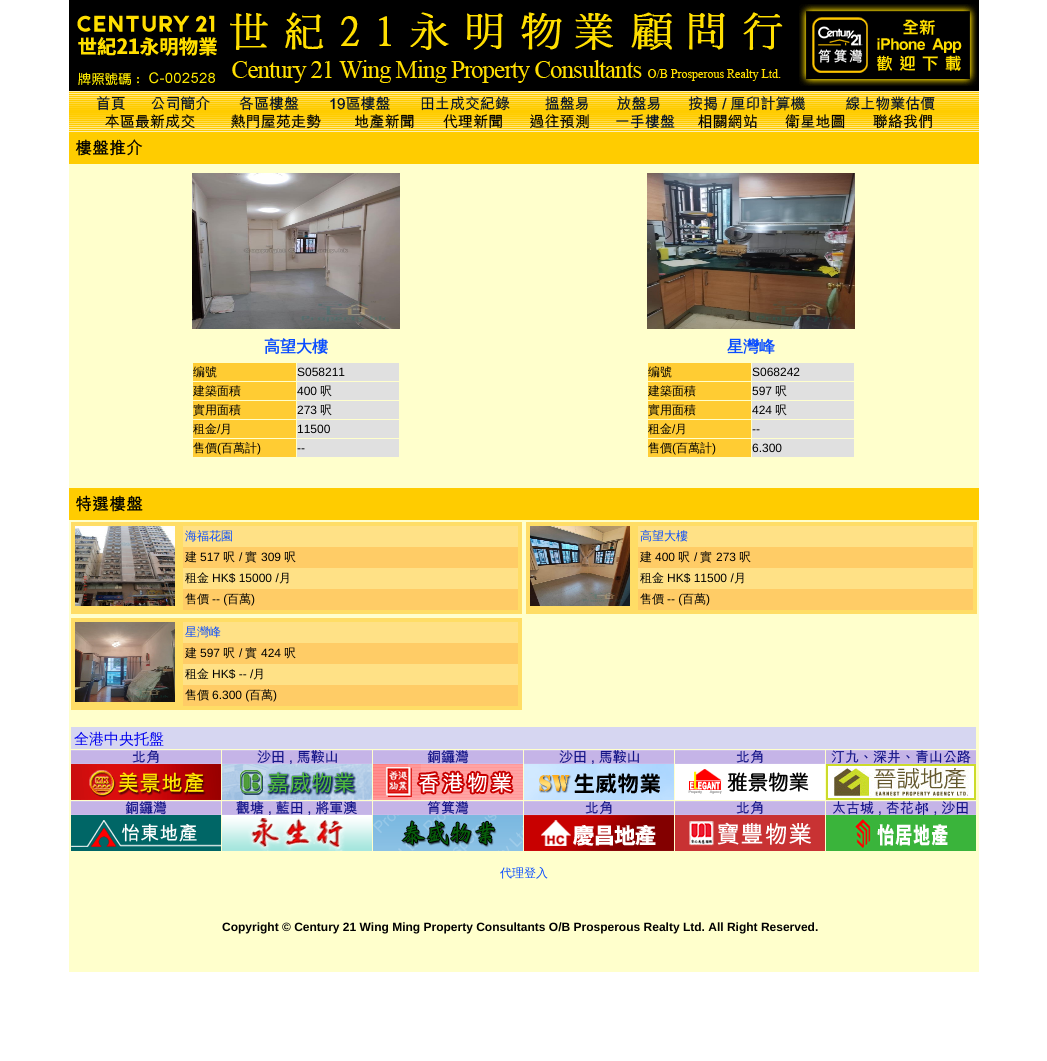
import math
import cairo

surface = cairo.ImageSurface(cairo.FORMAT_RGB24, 1047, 1061)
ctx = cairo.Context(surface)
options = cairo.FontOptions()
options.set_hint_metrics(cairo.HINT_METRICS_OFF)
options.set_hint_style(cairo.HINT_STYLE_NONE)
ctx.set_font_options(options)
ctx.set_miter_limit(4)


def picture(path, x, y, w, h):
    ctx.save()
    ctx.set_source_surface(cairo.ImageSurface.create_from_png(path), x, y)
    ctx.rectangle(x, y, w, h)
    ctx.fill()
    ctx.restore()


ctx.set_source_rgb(1, 1, 1)
ctx.paint()
ctx.set_source_rgb(1, 1, 0.8)
ctx.rectangle(69, 164, 910, 808)
ctx.fill()
picture("img1.png", 69, 0, 910, 132)
picture("img2.png", 77, 12, 706, 74)
picture("img3.png", 799, 4, 178, 82)
picture("img4.png", 96, 96, 29, 15)
picture("img5.png", 151, 96, 59, 15)
picture("img6.png", 239, 96, 60, 15)
picture("img7.png", 330, 96, 60, 15)
picture("img8.png", 421, 96, 89, 15)
picture("img9.png", 545, 96, 43, 15)
picture("img10.png", 617, 96, 43, 14)
picture("img11.png", 688, 96, 117, 15)
picture("img12.png", 845, 96, 90, 15)
picture("img13.png", 105, 114, 90, 15)
picture("img14.png", 231, 114, 90, 15)
picture("img15.png", 355, 114, 59, 15)
picture("img16.png", 443, 114, 59, 15)
picture("img17.png", 530, 114, 59, 15)
picture("img18.png", 616, 114, 59, 15)
picture("img19.png", 698, 114, 59, 15)
picture("img20.png", 785, 114, 60, 15)
picture("img21.png", 873, 114, 59, 15)
ctx.set_source_rgb(1, 0.8, 0)
ctx.rectangle(69, 132, 910, 32)
ctx.fill()
picture("img22.png", 75, 139, 68, 17)
picture("img23.png", 192, 173, 208, 156)
ctx.select_font_face("WenQuanYi Zen Hei", cairo.FONT_SLANT_NORMAL, cairo.FONT_WEIGHT_BOLD)
ctx.set_font_size(16)
ctx.set_source_rgb(0.039, 0.298, 1)
ctx.move_to(264, 352)
ctx.show_text("高望大樓")
ctx.set_source_rgb(1, 0.8, 0.2)
ctx.rectangle(193, 363, 103, 18)
ctx.fill()
ctx.select_font_face("WenQuanYi Zen Hei Medium")
ctx.set_font_size(12)
ctx.set_source_rgb(0, 0, 0)
ctx.move_to(193, 376)
ctx.show_text("编號")
ctx.set_source_rgb(0.878, 0.878, 0.878)
ctx.rectangle(297, 363, 102, 18)
ctx.fill()
ctx.select_font_face("Liberation Sans")
ctx.set_source_rgb(0, 0, 0)
ctx.move_to(297, 376)
ctx.show_text("S058211")
ctx.set_source_rgb(1, 0.8, 0.2)
ctx.rectangle(193, 382, 103, 18)
ctx.fill()
ctx.select_font_face("WenQuanYi Zen Hei Medium")
ctx.set_source_rgb(0, 0, 0)
ctx.move_to(193, 395)
ctx.show_text("建築面積")
ctx.set_source_rgb(0.878, 0.878, 0.878)
ctx.rectangle(297, 382, 102, 18)
ctx.fill()
ctx.select_font_face("Liberation Sans")
ctx.set_source_rgb(0, 0, 0)
ctx.move_to(297, 395)
ctx.show_text("400")
ctx.select_font_face("WenQuanYi Zen Hei Medium")
ctx.move_to(320, 395)
ctx.show_text("呎")
ctx.set_source_rgb(1, 0.8, 0.2)
ctx.rectangle(193, 401, 103, 18)
ctx.fill()
ctx.set_source_rgb(0, 0, 0)
ctx.move_to(193, 414)
ctx.show_text("實用面積")
ctx.set_source_rgb(0.878, 0.878, 0.878)
ctx.rectangle(297, 401, 102, 18)
ctx.fill()
ctx.select_font_face("Liberation Sans")
ctx.set_source_rgb(0, 0, 0)
ctx.move_to(297, 414)
ctx.show_text("273")
ctx.select_font_face("WenQuanYi Zen Hei Medium")
ctx.move_to(320, 414)
ctx.show_text("呎")
ctx.set_source_rgb(1, 0.8, 0.2)
ctx.rectangle(193, 420, 103, 18)
ctx.fill()
ctx.set_source_rgb(0, 0, 0)
ctx.move_to(193, 433)
ctx.show_text("租金")
ctx.select_font_face("Liberation Sans")
ctx.move_to(217, 433)
ctx.show_text("/")
ctx.select_font_face("WenQuanYi Zen Hei Medium")
ctx.move_to(220, 433)
ctx.show_text("月")
ctx.set_source_rgb(0.878, 0.878, 0.878)
ctx.rectangle(297, 420, 102, 18)
ctx.fill()
ctx.select_font_face("Liberation Sans")
ctx.set_source_rgb(0, 0, 0)
ctx.move_to(297, 433)
ctx.show_text("11500")
ctx.set_source_rgb(1, 0.8, 0.2)
ctx.rectangle(193, 439, 103, 18)
ctx.fill()
ctx.select_font_face("WenQuanYi Zen Hei Medium")
ctx.set_source_rgb(0, 0, 0)
ctx.move_to(193, 452)
ctx.show_text("售價")
ctx.select_font_face("Liberation Sans")
ctx.move_to(217, 452)
ctx.show_text("(")
ctx.select_font_face("WenQuanYi Zen Hei Medium")
ctx.move_to(221, 452)
ctx.show_text("百萬計")
ctx.select_font_face("Liberation Sans")
ctx.move_to(257, 452)
ctx.show_text(")")
ctx.set_source_rgb(0.878, 0.878, 0.878)
ctx.rectangle(297, 439, 102, 18)
ctx.fill()
ctx.set_source_rgb(0, 0, 0)
ctx.move_to(297, 452)
ctx.show_text("--")
picture("img24.png", 647, 173, 208, 156)
ctx.select_font_face("WenQuanYi Zen Hei", cairo.FONT_SLANT_NORMAL, cairo.FONT_WEIGHT_BOLD)
ctx.set_font_size(16)
ctx.set_source_rgb(0.039, 0.298, 1)
ctx.move_to(727, 352)
ctx.show_text("星灣峰")
ctx.set_source_rgb(1, 0.8, 0.2)
ctx.rectangle(648, 363, 103, 18)
ctx.fill()
ctx.select_font_face("WenQuanYi Zen Hei Medium")
ctx.set_font_size(12)
ctx.set_source_rgb(0, 0, 0)
ctx.move_to(648, 376)
ctx.show_text("编號")
ctx.set_source_rgb(0.878, 0.878, 0.878)
ctx.rectangle(752, 363, 102, 18)
ctx.fill()
ctx.select_font_face("Liberation Sans")
ctx.set_source_rgb(0, 0, 0)
ctx.move_to(752, 376)
ctx.show_text("S068242")
ctx.set_source_rgb(1, 0.8, 0.2)
ctx.rectangle(648, 382, 103, 18)
ctx.fill()
ctx.select_font_face("WenQuanYi Zen Hei Medium")
ctx.set_source_rgb(0, 0, 0)
ctx.move_to(648, 395)
ctx.show_text("建築面積")
ctx.set_source_rgb(0.878, 0.878, 0.878)
ctx.rectangle(752, 382, 102, 18)
ctx.fill()
ctx.select_font_face("Liberation Sans")
ctx.set_source_rgb(0, 0, 0)
ctx.move_to(752, 395)
ctx.show_text("597")
ctx.select_font_face("WenQuanYi Zen Hei Medium")
ctx.move_to(775, 395)
ctx.show_text("呎")
ctx.set_source_rgb(1, 0.8, 0.2)
ctx.rectangle(648, 401, 103, 18)
ctx.fill()
ctx.set_source_rgb(0, 0, 0)
ctx.move_to(648, 414)
ctx.show_text("實用面積")
ctx.set_source_rgb(0.878, 0.878, 0.878)
ctx.rectangle(752, 401, 102, 18)
ctx.fill()
ctx.select_font_face("Liberation Sans")
ctx.set_source_rgb(0, 0, 0)
ctx.move_to(752, 414)
ctx.show_text("424")
ctx.select_font_face("WenQuanYi Zen Hei Medium")
ctx.move_to(775, 414)
ctx.show_text("呎")
ctx.set_source_rgb(1, 0.8, 0.2)
ctx.rectangle(648, 420, 103, 18)
ctx.fill()
ctx.set_source_rgb(0, 0, 0)
ctx.move_to(648, 433)
ctx.show_text("租金")
ctx.select_font_face("Liberation Sans")
ctx.move_to(672, 433)
ctx.show_text("/")
ctx.select_font_face("WenQuanYi Zen Hei Medium")
ctx.move_to(675, 433)
ctx.show_text("月")
ctx.set_source_rgb(0.878, 0.878, 0.878)
ctx.rectangle(752, 420, 102, 18)
ctx.fill()
ctx.select_font_face("Liberation Sans")
ctx.set_source_rgb(0, 0, 0)
ctx.move_to(752, 433)
ctx.show_text("--")
ctx.set_source_rgb(1, 0.8, 0.2)
ctx.rectangle(648, 439, 103, 18)
ctx.fill()
ctx.select_font_face("WenQuanYi Zen Hei Medium")
ctx.set_source_rgb(0, 0, 0)
ctx.move_to(648, 452)
ctx.show_text("售價")
ctx.select_font_face("Liberation Sans")
ctx.move_to(672, 452)
ctx.show_text("(")
ctx.select_font_face("WenQuanYi Zen Hei Medium")
ctx.move_to(676, 452)
ctx.show_text("百萬計")
ctx.select_font_face("Liberation Sans")
ctx.move_to(712, 452)
ctx.show_text(")")
ctx.set_source_rgb(0.878, 0.878, 0.878)
ctx.rectangle(752, 439, 102, 18)
ctx.fill()
ctx.set_source_rgb(0, 0, 0)
ctx.move_to(752, 452)
ctx.show_text("6.300")
ctx.set_source_rgb(1, 0.8, 0)
ctx.rectangle(69, 488, 910, 32)
ctx.fill()
picture("img25.png", 76, 495, 67, 17)
ctx.set_source_rgb(1, 0.867, 0.4)
ctx.rectangle(71, 522, 451, 92)
ctx.fill()
picture("img26.png", 75, 526, 100, 80)
ctx.set_source_rgb(1, 0.882, 0.525)
ctx.rectangle(183, 526, 335, 21)
ctx.fill()
ctx.select_font_face("WenQuanYi Zen Hei Medium")
ctx.set_source_rgb(0.039, 0.298, 1)
ctx.move_to(185, 540)
ctx.show_text("海福花園")
ctx.set_source_rgb(1, 0.8, 0.4)
ctx.rectangle(183, 547, 335, 21)
ctx.fill()
ctx.set_source_rgb(0, 0, 0)
ctx.move_to(185, 561)
ctx.show_text("建")
ctx.select_font_face("Liberation Sans")
ctx.move_to(200, 561)
ctx.show_text("517")
ctx.select_font_face("WenQuanYi Zen Hei Medium")
ctx.move_to(223, 561)
ctx.show_text("呎")
ctx.select_font_face("Liberation Sans")
ctx.move_to(239, 561)
ctx.show_text("/")
ctx.select_font_face("WenQuanYi Zen Hei Medium")
ctx.move_to(245, 561)
ctx.show_text("實")
ctx.select_font_face("Liberation Sans")
ctx.move_to(261, 561)
ctx.show_text("309")
ctx.select_font_face("WenQuanYi Zen Hei Medium")
ctx.move_to(284, 561)
ctx.show_text("呎")
ctx.set_source_rgb(1, 0.882, 0.525)
ctx.rectangle(183, 568, 335, 21)
ctx.fill()
ctx.set_source_rgb(0, 0, 0)
ctx.move_to(185, 582)
ctx.show_text("租金")
ctx.select_font_face("Liberation Sans")
ctx.move_to(212, 582)
ctx.show_text("HK$ 15000 /")
ctx.select_font_face("WenQuanYi Zen Hei Medium")
ctx.move_to(279, 582)
ctx.show_text("月")
ctx.set_source_rgb(1, 0.8, 0.4)
ctx.rectangle(183, 589, 335, 21)
ctx.fill()
ctx.set_source_rgb(0, 0, 0)
ctx.move_to(185, 603)
ctx.show_text("售價")
ctx.select_font_face("Liberation Sans")
ctx.move_to(212, 603)
ctx.show_text("-- (")
ctx.select_font_face("WenQuanYi Zen Hei Medium")
ctx.move_to(227, 603)
ctx.show_text("百萬")
ctx.select_font_face("Liberation Sans")
ctx.move_to(251, 603)
ctx.show_text(")")
ctx.set_source_rgb(1, 0.867, 0.4)
ctx.rectangle(526, 522, 451, 92)
ctx.fill()
picture("img27.png", 530, 526, 100, 80)
ctx.set_source_rgb(1, 0.882, 0.525)
ctx.rectangle(638, 526, 335, 21)
ctx.fill()
ctx.select_font_face("WenQuanYi Zen Hei Medium")
ctx.set_source_rgb(0.039, 0.298, 1)
ctx.move_to(640, 540)
ctx.show_text("高望大樓")
ctx.set_source_rgb(1, 0.8, 0.4)
ctx.rectangle(638, 547, 335, 21)
ctx.fill()
ctx.set_source_rgb(0, 0, 0)
ctx.move_to(640, 561)
ctx.show_text("建")
ctx.select_font_face("Liberation Sans")
ctx.move_to(655, 561)
ctx.show_text("400")
ctx.select_font_face("WenQuanYi Zen Hei Medium")
ctx.move_to(678, 561)
ctx.show_text("呎")
ctx.select_font_face("Liberation Sans")
ctx.move_to(694, 561)
ctx.show_text("/")
ctx.select_font_face("WenQuanYi Zen Hei Medium")
ctx.move_to(700, 561)
ctx.show_text("實")
ctx.select_font_face("Liberation Sans")
ctx.move_to(716, 561)
ctx.show_text("273")
ctx.select_font_face("WenQuanYi Zen Hei Medium")
ctx.move_to(739, 561)
ctx.show_text("呎")
ctx.set_source_rgb(1, 0.882, 0.525)
ctx.rectangle(638, 568, 335, 21)
ctx.fill()
ctx.set_source_rgb(0, 0, 0)
ctx.move_to(640, 582)
ctx.show_text("租金")
ctx.select_font_face("Liberation Sans")
ctx.move_to(667, 582)
ctx.show_text("HK$ 11500 /")
ctx.select_font_face("WenQuanYi Zen Hei Medium")
ctx.move_to(734, 582)
ctx.show_text("月")
ctx.set_source_rgb(1, 0.8, 0.4)
ctx.rectangle(638, 589, 335, 21)
ctx.fill()
ctx.set_source_rgb(0, 0, 0)
ctx.move_to(640, 603)
ctx.show_text("售價")
ctx.select_font_face("Liberation Sans")
ctx.move_to(667, 603)
ctx.show_text("-- (")
ctx.select_font_face("WenQuanYi Zen Hei Medium")
ctx.move_to(682, 603)
ctx.show_text("百萬")
ctx.select_font_face("Liberation Sans")
ctx.move_to(706, 603)
ctx.show_text(")")
ctx.set_source_rgb(1, 0.867, 0.4)
ctx.rectangle(71, 618, 451, 92)
ctx.fill()
picture("img28.png", 75, 622, 100, 80)
ctx.set_source_rgb(1, 0.882, 0.525)
ctx.rectangle(183, 622, 335, 21)
ctx.fill()
ctx.select_font_face("WenQuanYi Zen Hei Medium")
ctx.set_source_rgb(0.039, 0.298, 1)
ctx.move_to(185, 636)
ctx.show_text("星灣峰")
ctx.set_source_rgb(1, 0.8, 0.4)
ctx.rectangle(183, 643, 335, 21)
ctx.fill()
ctx.set_source_rgb(0, 0, 0)
ctx.move_to(185, 657)
ctx.show_text("建")
ctx.select_font_face("Liberation Sans")
ctx.move_to(200, 657)
ctx.show_text("597")
ctx.select_font_face("WenQuanYi Zen Hei Medium")
ctx.move_to(223, 657)
ctx.show_text("呎")
ctx.select_font_face("Liberation Sans")
ctx.move_to(239, 657)
ctx.show_text("/")
ctx.select_font_face("WenQuanYi Zen Hei Medium")
ctx.move_to(245, 657)
ctx.show_text("實")
ctx.select_font_face("Liberation Sans")
ctx.move_to(261, 657)
ctx.show_text("424")
ctx.select_font_face("WenQuanYi Zen Hei Medium")
ctx.move_to(284, 657)
ctx.show_text("呎")
ctx.set_source_rgb(1, 0.882, 0.525)
ctx.rectangle(183, 664, 335, 21)
ctx.fill()
ctx.set_source_rgb(0, 0, 0)
ctx.move_to(185, 678)
ctx.show_text("租金")
ctx.select_font_face("Liberation Sans")
ctx.move_to(212, 678)
ctx.show_text("HK$ -- /")
ctx.select_font_face("WenQuanYi Zen Hei Medium")
ctx.move_to(253, 678)
ctx.show_text("月")
ctx.set_source_rgb(1, 0.8, 0.4)
ctx.rectangle(183, 685, 335, 21)
ctx.fill()
ctx.set_source_rgb(0, 0, 0)
ctx.move_to(185, 699)
ctx.show_text("售價")
ctx.select_font_face("Liberation Sans")
ctx.move_to(212, 699)
ctx.show_text("6.300 (")
ctx.select_font_face("WenQuanYi Zen Hei Medium")
ctx.move_to(249, 699)
ctx.show_text("百萬")
ctx.select_font_face("Liberation Sans")
ctx.move_to(273, 699)
ctx.show_text(")")
picture("img29.png", 71, 727, 905, 124)
ctx.select_font_face("WenQuanYi Zen Hei Medium")
ctx.set_source_rgb(0.039, 0.298, 1)
ctx.move_to(500, 877)
ctx.show_text("代理登入")
ctx.select_font_face("Liberation Sans", cairo.FONT_SLANT_NORMAL, cairo.FONT_WEIGHT_BOLD)
ctx.set_source_rgb(0, 0, 0)
ctx.move_to(222, 931)
ctx.show_text("Copyright © Century 21 Wing Ming Property Consultants O/B Prosperous Realty Ltd. All Right Reserved.")
surface.write_to_png("page.png")
